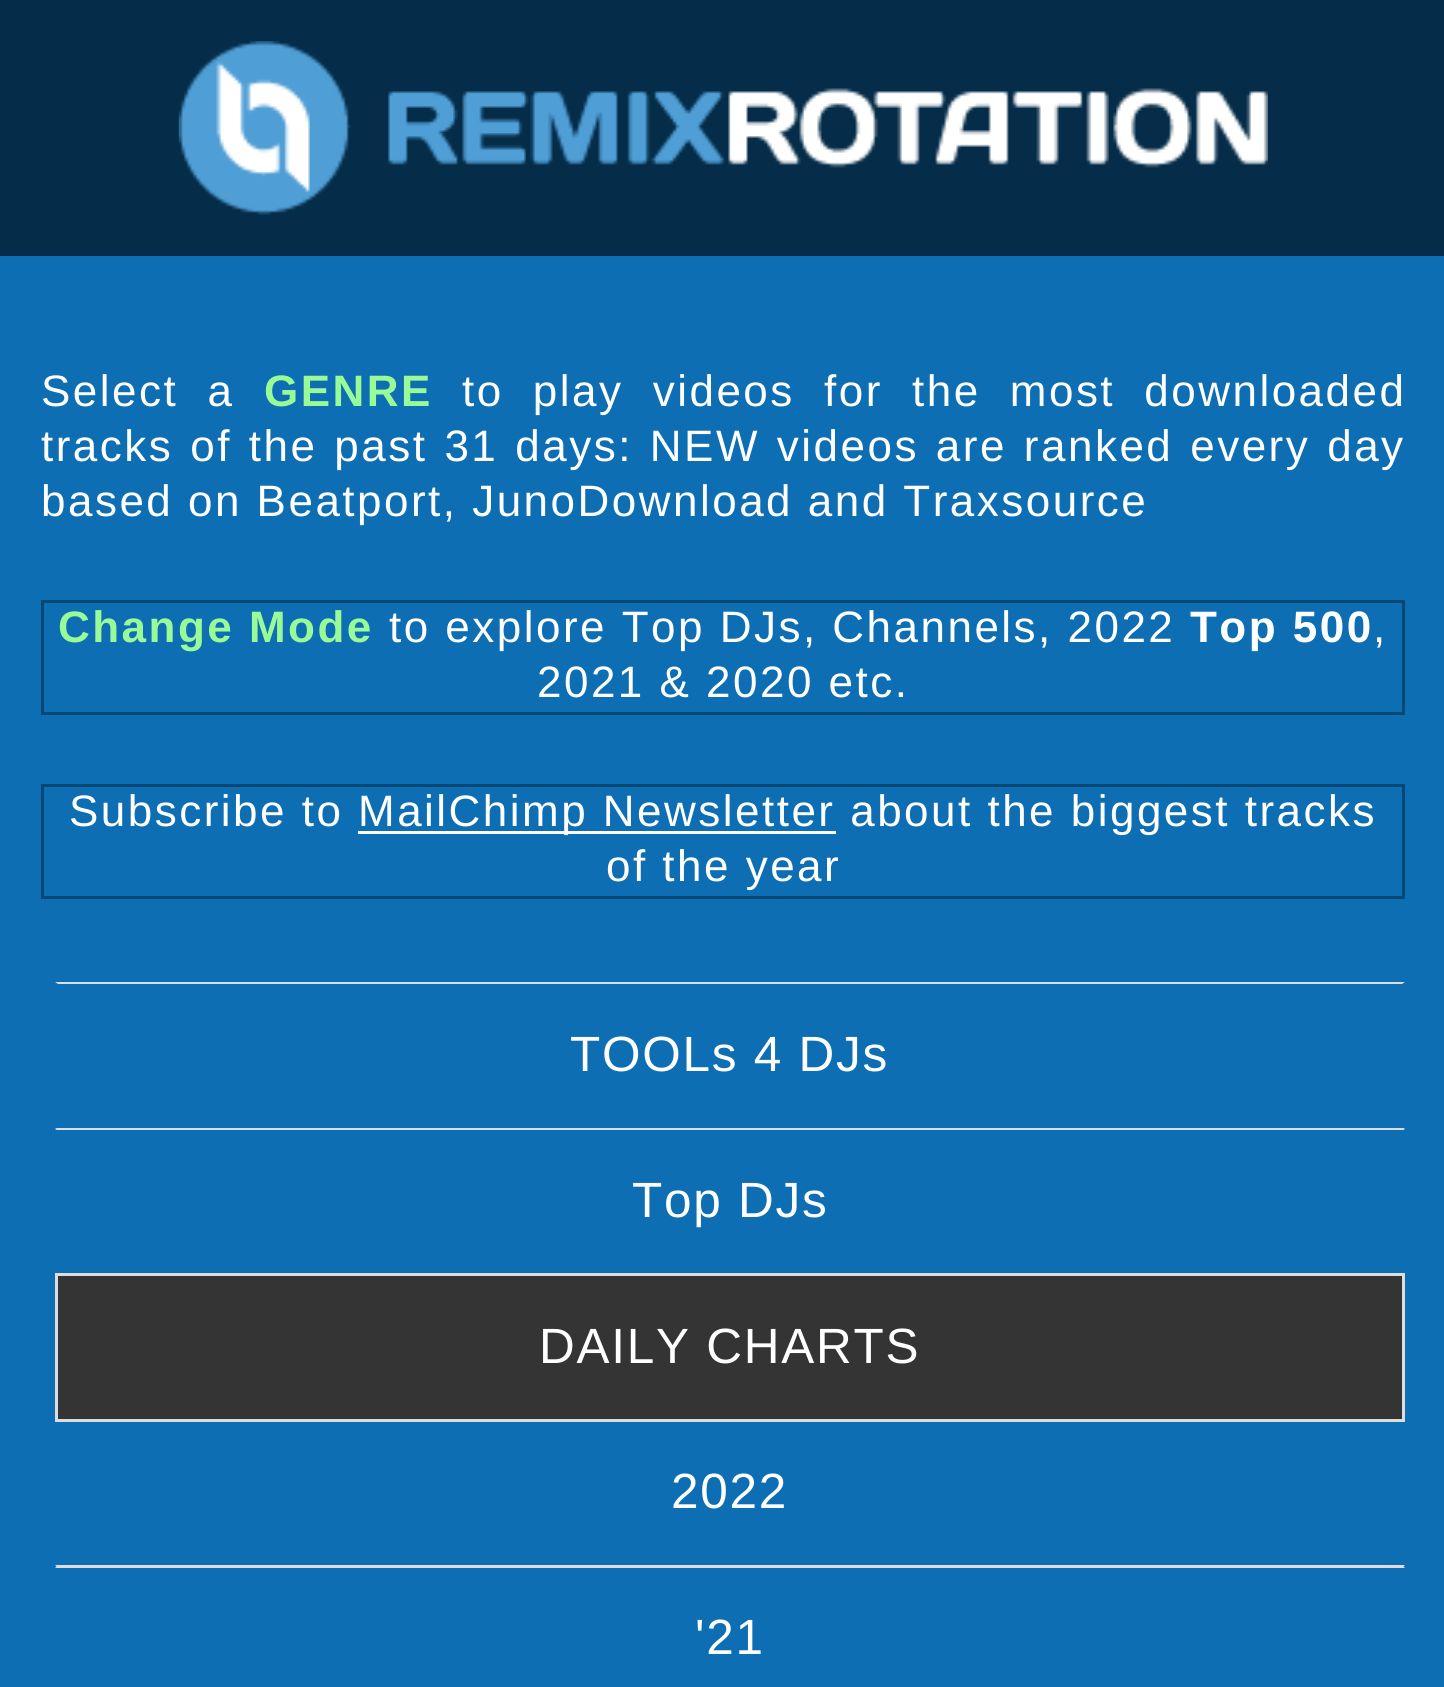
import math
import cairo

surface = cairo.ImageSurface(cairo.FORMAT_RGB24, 1444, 1687)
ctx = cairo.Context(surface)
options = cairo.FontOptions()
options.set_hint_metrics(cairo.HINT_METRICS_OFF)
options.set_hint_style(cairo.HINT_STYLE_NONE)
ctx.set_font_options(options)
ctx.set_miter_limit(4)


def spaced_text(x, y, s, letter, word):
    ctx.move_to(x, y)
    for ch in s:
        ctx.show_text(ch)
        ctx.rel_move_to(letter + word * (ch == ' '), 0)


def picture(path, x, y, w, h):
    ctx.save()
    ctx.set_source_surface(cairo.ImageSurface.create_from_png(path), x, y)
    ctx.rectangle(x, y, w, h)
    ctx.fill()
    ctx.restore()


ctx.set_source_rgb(0.051, 0.431, 0.702)
ctx.paint()
ctx.set_source_rgb(0.02, 0.173, 0.282)
ctx.rectangle(0, 0, 1444, 256)
ctx.fill()
picture("img1.png", 178, 41, 1090, 174)
ctx.select_font_face("Liberation Sans")
ctx.set_font_size(44)
ctx.set_source_rgb(1, 1, 1)
spaced_text(41, 406, "Select a", 2.48, 14.5)
ctx.select_font_face("Liberation Sans", cairo.FONT_SLANT_NORMAL, cairo.FONT_WEIGHT_BOLD)
ctx.set_source_rgb(0.596, 0.984, 0.596)
spaced_text(264, 406, "GENRE", 2.48, 0)
ctx.select_font_face("Liberation Sans")
ctx.set_source_rgb(1, 1, 1)
spaced_text(462, 406, "to play videos for the most downloaded", 2.48, 14.5)
spaced_text(41, 461, "tracks of the past 31 days: NEW videos are ranked every day", 2.48, 2.25)
spaced_text(41, 516, "based on Beatport, JunoDownload and Traxsource", 2.48, 0)
ctx.rectangle(42.5, 601.5, 1361, 112)
ctx.set_source_rgb(0.031, 0.278, 0.451)
ctx.set_line_width(3)
ctx.stroke()
ctx.select_font_face("Liberation Sans", cairo.FONT_SLANT_NORMAL, cairo.FONT_WEIGHT_BOLD)
ctx.set_source_rgb(0.596, 0.984, 0.596)
spaced_text(58, 642, "Change Mode", 2.48, 0)
ctx.select_font_face("Liberation Sans")
ctx.set_source_rgb(1, 1, 1)
spaced_text(389, 642, "to explore Top DJs, Channels, 2022", 2.48, 0)
ctx.select_font_face("Liberation Sans", cairo.FONT_SLANT_NORMAL, cairo.FONT_WEIGHT_BOLD)
spaced_text(1190, 642, "Top 500", 2.48, 0)
ctx.select_font_face("Liberation Sans")
spaced_text(1373, 642, ",", 2.48, 0)
spaced_text(537, 697, "2021 & 2020 etc.", 2.48, 0)
ctx.rectangle(42.5, 785.5, 1361, 112)
ctx.set_source_rgb(0.031, 0.278, 0.451)
ctx.stroke()
ctx.set_source_rgb(1, 1, 1)
spaced_text(69, 826, "Subscribe to", 2.48, 0)
ctx.rectangle(358, 831, 478, 3)
ctx.fill()
spaced_text(358, 826, "MailChimp Newsletter about the biggest tracks", 2.48, 0)
spaced_text(606, 881, "of the year", 2.48, 0)
ctx.set_source_rgb(0.867, 0.867, 0.867)
ctx.new_path()
ctx.move_to(55, 982)
ctx.line_to(1405, 982)
ctx.line_to(1402, 984)
ctx.line_to(58, 984)
ctx.close_path()
ctx.fill()
ctx.new_path()
ctx.move_to(1405, 1130)
ctx.line_to(55, 1130)
ctx.line_to(58, 1128)
ctx.line_to(1402, 1128)
ctx.close_path()
ctx.fill()
ctx.set_font_size(49.5)
ctx.set_source_rgb(1, 1, 1)
spaced_text(570, 1071, "TOOLs 4 DJs", 1.75, 0)
ctx.set_source_rgb(0.867, 0.867, 0.867)
ctx.new_path()
ctx.move_to(55, 1128)
ctx.line_to(1405, 1128)
ctx.line_to(1402, 1130)
ctx.line_to(58, 1130)
ctx.close_path()
ctx.fill()
ctx.set_source_rgb(1, 1, 1)
spaced_text(632, 1217, "Top DJs", 1.75, 0)
ctx.set_source_rgb(0.204, 0.204, 0.204)
ctx.rectangle(56.5, 1274.5, 1347, 146)
ctx.fill_preserve()
ctx.set_source_rgb(0.867, 0.867, 0.867)
ctx.stroke()
ctx.set_source_rgb(1, 1, 1)
spaced_text(539, 1363, "DAILY CHARTS", 1.75, 0)
ctx.set_source_rgb(0.867, 0.867, 0.867)
ctx.new_path()
ctx.move_to(1405, 1568)
ctx.line_to(55, 1568)
ctx.line_to(58, 1565)
ctx.line_to(1402, 1565)
ctx.close_path()
ctx.fill()
ctx.set_source_rgb(1, 1, 1)
spaced_text(671, 1508, "2022", 1.75, 0)
ctx.set_source_rgb(0.867, 0.867, 0.867)
ctx.new_path()
ctx.move_to(55, 1565)
ctx.line_to(1405, 1565)
ctx.line_to(1402, 1568)
ctx.line_to(58, 1568)
ctx.close_path()
ctx.fill()
ctx.set_source_rgb(1, 1, 1)
spaced_text(695, 1654, "'21", 1.75, 0)
surface.write_to_png("page.png")
